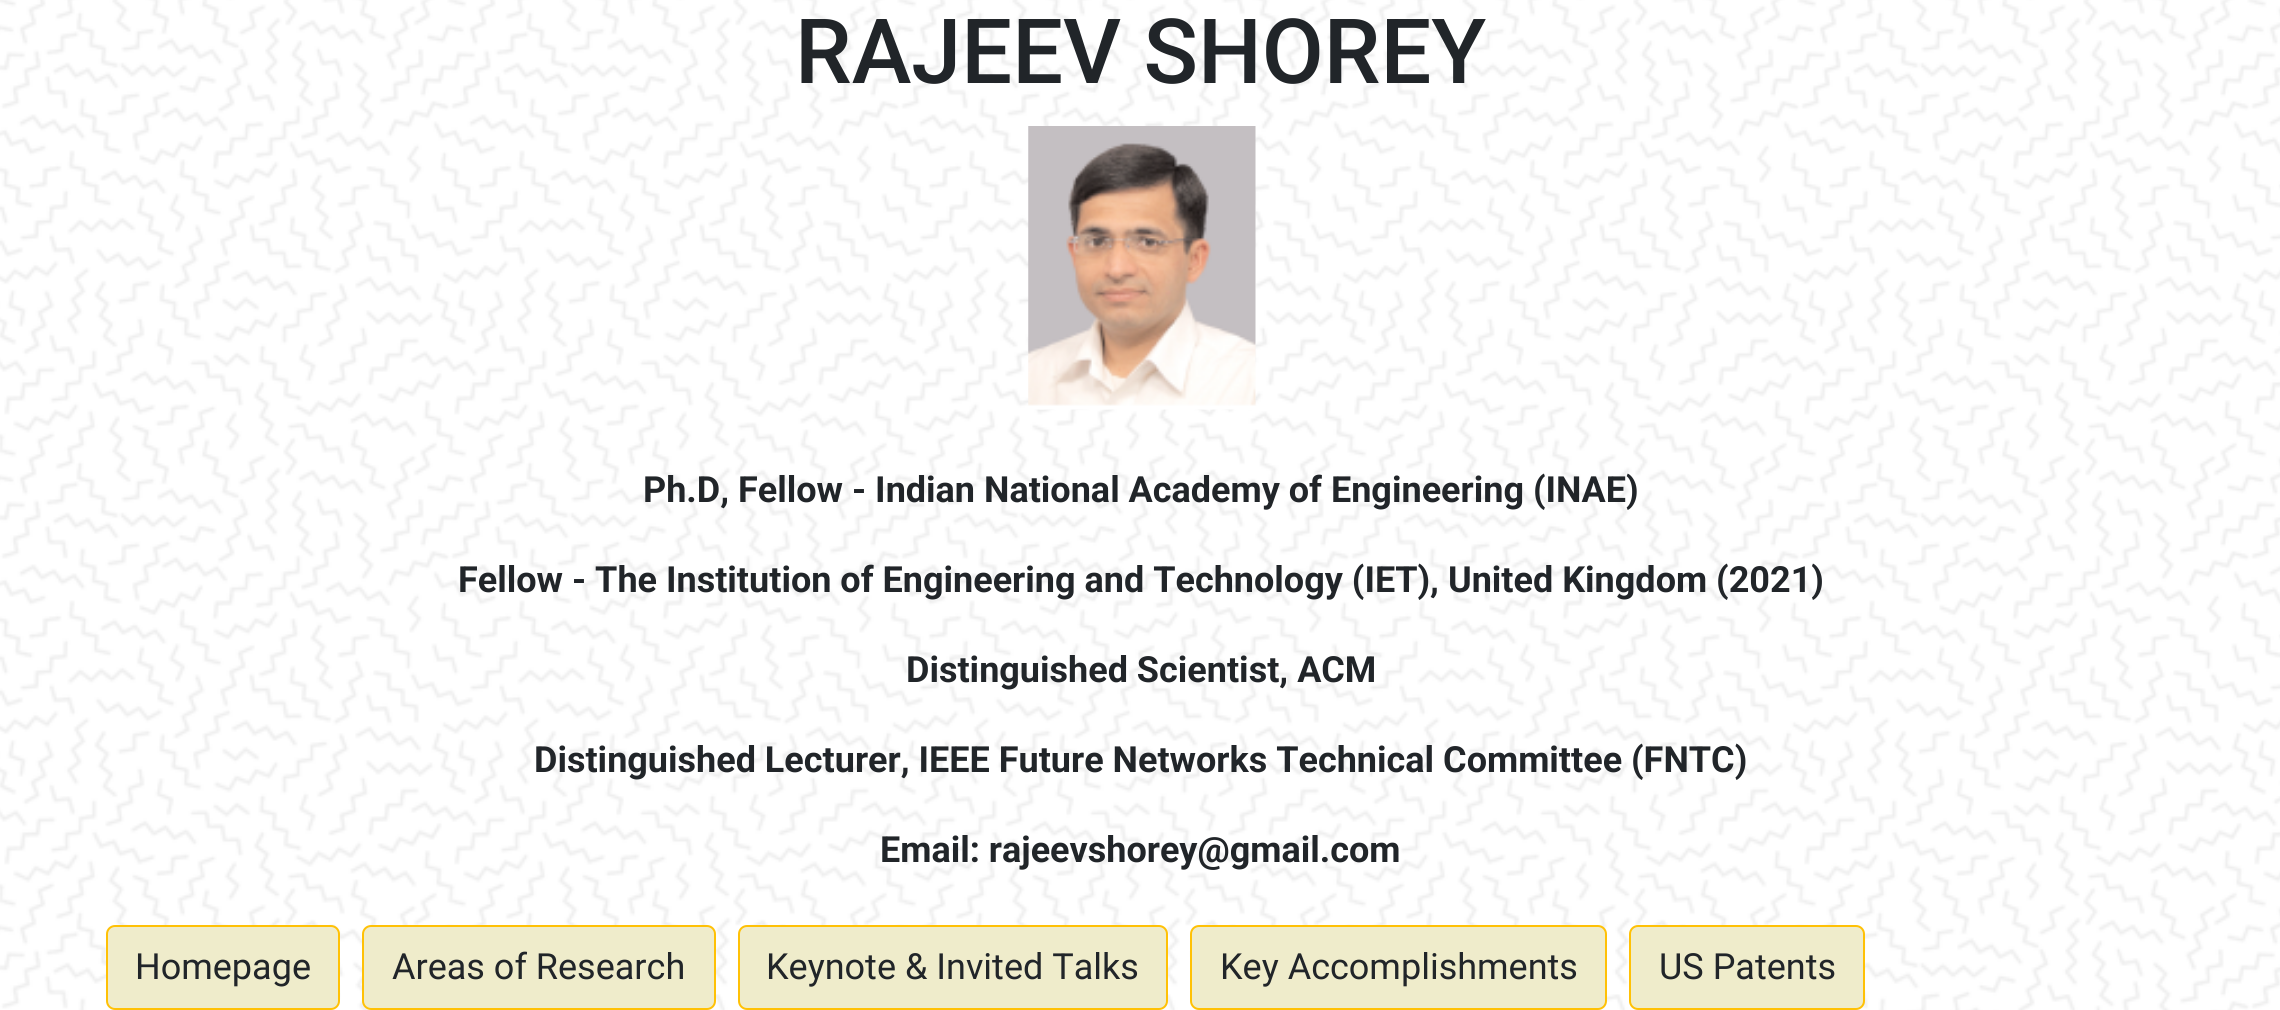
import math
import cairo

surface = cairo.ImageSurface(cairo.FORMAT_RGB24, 2280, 1010)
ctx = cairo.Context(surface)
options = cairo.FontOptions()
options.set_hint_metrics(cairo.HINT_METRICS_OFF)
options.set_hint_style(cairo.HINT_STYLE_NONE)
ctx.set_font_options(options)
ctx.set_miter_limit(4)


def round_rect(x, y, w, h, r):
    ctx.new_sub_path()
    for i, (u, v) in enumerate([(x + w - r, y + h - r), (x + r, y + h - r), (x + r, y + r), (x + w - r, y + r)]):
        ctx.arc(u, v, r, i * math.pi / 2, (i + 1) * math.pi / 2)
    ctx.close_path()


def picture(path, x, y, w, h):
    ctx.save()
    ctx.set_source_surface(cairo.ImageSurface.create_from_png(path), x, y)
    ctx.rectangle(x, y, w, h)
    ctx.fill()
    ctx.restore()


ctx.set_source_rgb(1, 1, 1)
ctx.paint()
picture("img1.png", 0, 0, 2280, 1010)
ctx.select_font_face("Roboto Medium")
ctx.set_font_size(90)
ctx.set_source_rgb(0.129, 0.145, 0.161)
ctx.move_to(795, 83)
ctx.show_text("RAJEEV SHOREY")
picture("img2.png", 1028, 126, 228, 284)
ctx.select_font_face("Roboto", cairo.FONT_SLANT_NORMAL, cairo.FONT_WEIGHT_BOLD)
ctx.set_font_size(36)
ctx.move_to(643, 502)
ctx.show_text("Ph.D, Fellow - Indian National Academy of Engineering (INAE)")
ctx.move_to(458, 592)
ctx.show_text("Fellow - The Institution of Engineering and Technology (IET), United Kingdom (2021)")
ctx.move_to(906, 682)
ctx.show_text("Distinguished Scientist, ACM")
ctx.move_to(534, 772)
ctx.show_text("Distinguished Lecturer, IEEE Future Networks Technical Committee (FNTC)")
ctx.move_to(880, 862)
ctx.show_text("Email: rajeevshorey@gmail.com")
ctx.set_source_rgb(0.937, 0.922, 0.796)
round_rect(107, 926, 232, 83, 8)
ctx.fill_preserve()
ctx.set_source_rgb(1, 0.757, 0.027)
ctx.stroke()
ctx.select_font_face("Roboto")
ctx.set_source_rgb(0.129, 0.145, 0.161)
ctx.move_to(135, 979)
ctx.show_text("Homepage")
ctx.set_source_rgb(0.937, 0.922, 0.796)
round_rect(363, 926, 352, 83, 8)
ctx.fill_preserve()
ctx.set_source_rgb(1, 0.757, 0.027)
ctx.stroke()
ctx.set_source_rgb(0.129, 0.145, 0.161)
ctx.move_to(392, 979)
ctx.show_text("Areas of Research")
ctx.set_source_rgb(0.937, 0.922, 0.796)
round_rect(739, 926, 428, 83, 8)
ctx.fill_preserve()
ctx.set_source_rgb(1, 0.757, 0.027)
ctx.stroke()
ctx.set_source_rgb(0.129, 0.145, 0.161)
ctx.move_to(766, 979)
ctx.show_text("Keynote & Invited Talks")
ctx.set_source_rgb(0.937, 0.922, 0.796)
round_rect(1191, 926, 415, 83, 8)
ctx.fill_preserve()
ctx.set_source_rgb(1, 0.757, 0.027)
ctx.stroke()
ctx.set_source_rgb(0.129, 0.145, 0.161)
ctx.move_to(1220, 979)
ctx.show_text("Key Accomplishments")
ctx.set_source_rgb(0.937, 0.922, 0.796)
round_rect(1630, 926, 234, 83, 8)
ctx.fill_preserve()
ctx.set_source_rgb(1, 0.757, 0.027)
ctx.stroke()
ctx.set_source_rgb(0.129, 0.145, 0.161)
ctx.move_to(1659, 979)
ctx.show_text("US Patents")
surface.write_to_png("page.png")
